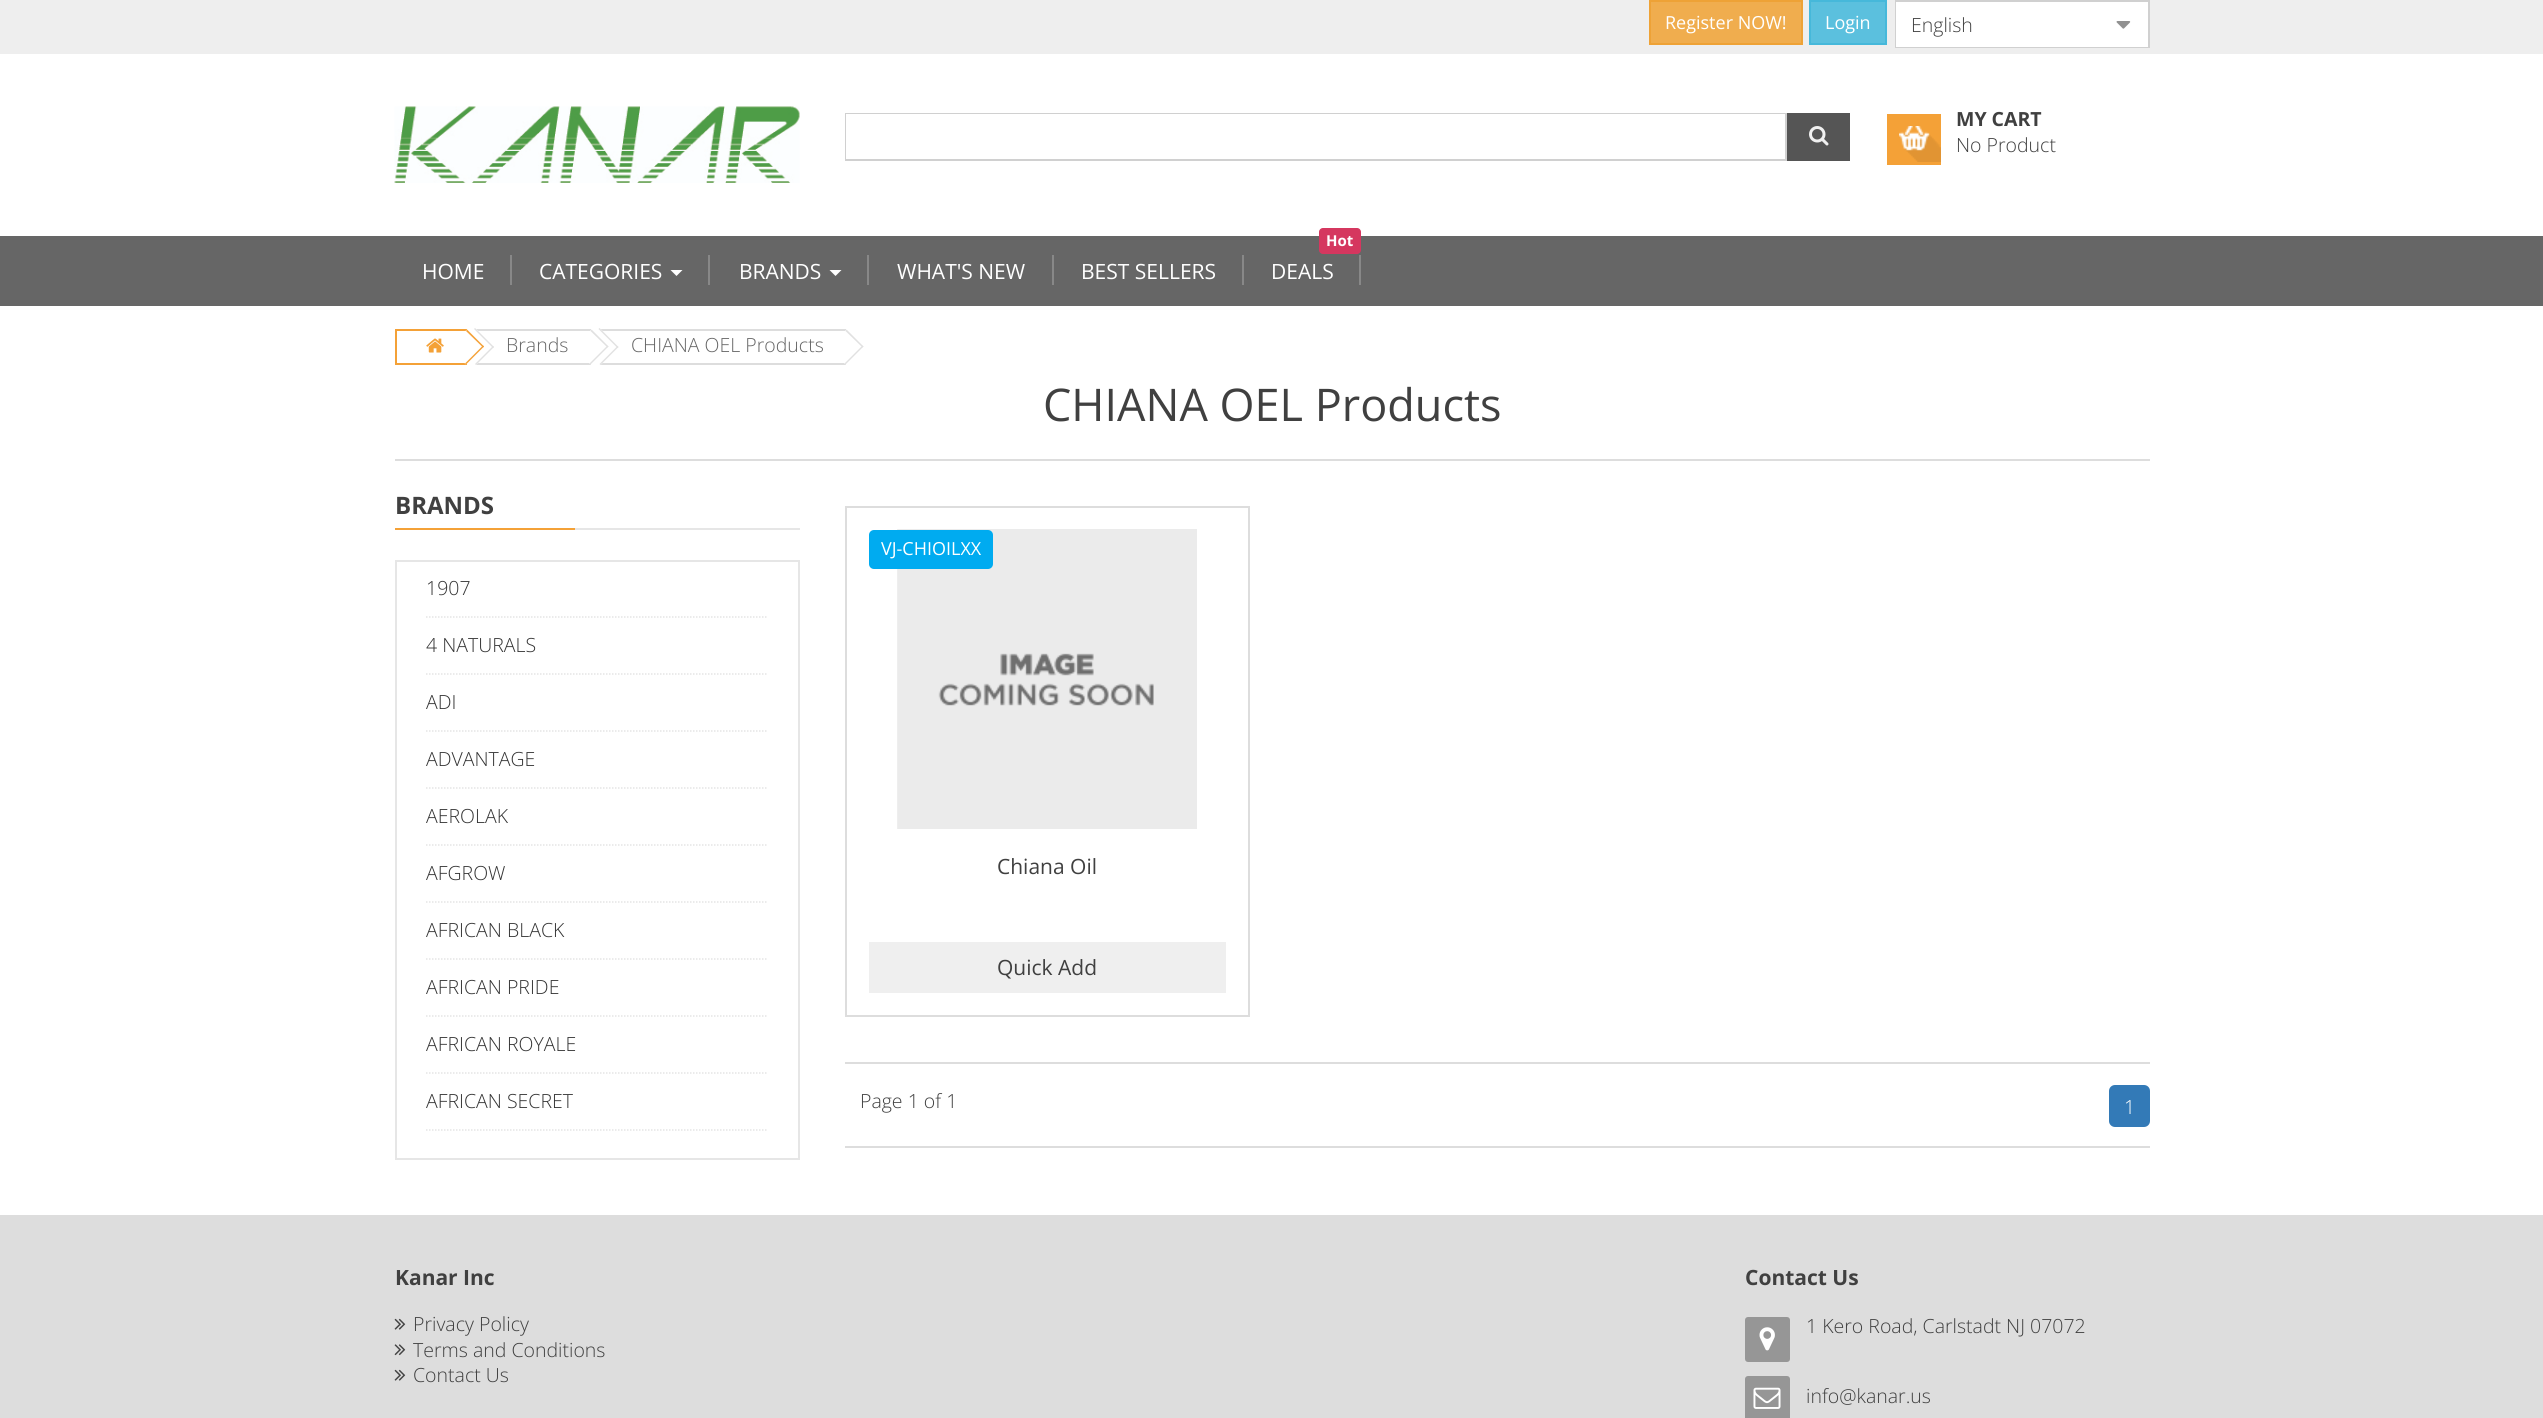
import math
import cairo

surface = cairo.ImageSurface(cairo.FORMAT_RGB24, 2543, 1418)
ctx = cairo.Context(surface)
options = cairo.FontOptions()
options.set_hint_metrics(cairo.HINT_METRICS_OFF)
options.set_hint_style(cairo.HINT_STYLE_NONE)
ctx.set_font_options(options)
ctx.set_miter_limit(4)


def round_rect(x, y, w, h, r):
    ctx.new_sub_path()
    for i, (u, v) in enumerate([(x + w - r, y + h - r), (x + r, y + h - r), (x + r, y + r), (x + w - r, y + r)]):
        ctx.arc(u, v, r, i * math.pi / 2, (i + 1) * math.pi / 2)
    ctx.close_path()


def picture(path, x, y, w, h):
    ctx.save()
    ctx.set_source_surface(cairo.ImageSurface.create_from_png(path), x, y)
    ctx.rectangle(x, y, w, h)
    ctx.fill()
    ctx.restore()


ctx.set_source_rgb(1, 1, 1)
ctx.paint()
ctx.set_source_rgb(0.933, 0.933, 0.933)
ctx.rectangle(0, 0, 2543, 54)
ctx.fill()
ctx.set_source_rgb(0.941, 0.678, 0.306)
ctx.rectangle(1650, 1, 152, 43)
ctx.fill_preserve()
ctx.set_source_rgb(0.933, 0.635, 0.212)
ctx.stroke()
ctx.select_font_face("Open Sans")
ctx.set_font_size(18)
ctx.set_source_rgb(1, 1, 1)
ctx.move_to(1665, 29)
ctx.show_text("Register NOW!")
ctx.set_source_rgb(0.357, 0.753, 0.871)
ctx.rectangle(1810, 1, 76, 43)
ctx.fill_preserve()
ctx.set_source_rgb(0.275, 0.722, 0.855)
ctx.stroke()
ctx.set_source_rgb(1, 1, 1)
ctx.move_to(1825, 29)
ctx.show_text("Login")
ctx.rectangle(1896, 1, 253, 46)
ctx.set_source_rgb(0.816, 0.816, 0.816)
ctx.stroke()
ctx.set_source_rgb(1, 1, 1)
ctx.rectangle(1896, 2, 252, 45)
ctx.fill()
ctx.select_font_face("Open Sans Light")
ctx.set_font_size(19.5)
ctx.set_source_rgb(0.251, 0.251, 0.251)
ctx.move_to(1911, 32)
ctx.show_text("English")
picture("img1.png", 2116, 21, 15, 8)
picture("img2.png", 394, 106, 406, 77)
ctx.rectangle(846, 114, 940, 46)
ctx.set_source_rgb(0.816, 0.816, 0.816)
ctx.stroke()
ctx.set_source_rgb(1, 1, 1)
ctx.rectangle(846, 114, 939, 45)
ctx.fill()
ctx.set_source_rgb(0.333, 0.333, 0.333)
ctx.rectangle(1787, 113, 63, 48)
ctx.fill()
picture("img3.png", 1809, 126, 20, 20)
ctx.set_source_rgb(0.957, 0.631, 0.216)
ctx.rectangle(1887, 114, 54, 51)
ctx.fill()
picture("img4.png", 1899, 126, 42, 36)
ctx.select_font_face("Open Sans", cairo.FONT_SLANT_NORMAL, cairo.FONT_WEIGHT_BOLD)
ctx.set_source_rgb(0.251, 0.251, 0.251)
ctx.move_to(1956, 126)
ctx.show_text("MY CART")
ctx.select_font_face("Open Sans Light")
ctx.move_to(1956, 152)
ctx.show_text("No Product")
ctx.set_source_rgb(0.4, 0.4, 0.4)
ctx.rectangle(0, 236, 2543, 70)
ctx.fill()
ctx.select_font_face("Open Sans")
ctx.set_font_size(21)
ctx.set_source_rgb(1, 1, 1)
ctx.move_to(422, 279)
ctx.show_text("HOME")
ctx.set_source_rgb(0.533, 0.533, 0.533)
ctx.rectangle(510, 255, 2, 30)
ctx.fill()
ctx.set_source_rgb(1, 1, 1)
ctx.move_to(539, 279)
ctx.show_text("CATEGORIES")
ctx.new_path()
ctx.move_to(670.5, 270)
ctx.line_to(682.5, 270)
ctx.line_to(676.5, 276)
ctx.close_path()
ctx.fill()
ctx.set_source_rgb(0.533, 0.533, 0.533)
ctx.rectangle(708, 255, 2, 30)
ctx.fill()
ctx.set_source_rgb(1, 1, 1)
ctx.move_to(739, 279)
ctx.show_text("BRANDS")
ctx.new_path()
ctx.move_to(829.5, 270)
ctx.line_to(841.5, 270)
ctx.line_to(835.5, 276)
ctx.close_path()
ctx.fill()
ctx.set_source_rgb(0.533, 0.533, 0.533)
ctx.rectangle(867, 255, 2, 30)
ctx.fill()
ctx.set_source_rgb(1, 1, 1)
ctx.move_to(897, 279)
ctx.show_text("WHAT'S NEW")
ctx.set_source_rgb(0.533, 0.533, 0.533)
ctx.rectangle(1052, 255, 2, 30)
ctx.fill()
ctx.set_source_rgb(1, 1, 1)
ctx.move_to(1081, 279)
ctx.show_text("BEST SELLERS")
ctx.set_source_rgb(0.533, 0.533, 0.533)
ctx.rectangle(1242, 255, 2, 30)
ctx.fill()
ctx.set_source_rgb(0.835, 0.216, 0.373)
round_rect(1319, 228, 42, 26, 4)
ctx.fill()
ctx.select_font_face("Open Sans", cairo.FONT_SLANT_NORMAL, cairo.FONT_WEIGHT_BOLD)
ctx.set_font_size(15)
ctx.set_source_rgb(1, 1, 1)
ctx.move_to(1326, 246)
ctx.show_text("Hot")
ctx.select_font_face("Open Sans")
ctx.set_font_size(21)
ctx.move_to(1271, 279)
ctx.show_text("DEALS")
ctx.set_source_rgb(0.533, 0.533, 0.533)
ctx.rectangle(1359, 255, 2, 30)
ctx.fill()
ctx.set_source_rgb(0.957, 0.631, 0.216)
ctx.rectangle(395, 329, 72, 2)
ctx.fill()
ctx.rectangle(395, 363, 72, 2)
ctx.fill()
ctx.rectangle(395, 329, 2, 36)
ctx.fill()
picture("img5.png", 426, 338, 18, 15)
ctx.set_source_rgb(0.867, 0.867, 0.867)
ctx.rectangle(476, 329, 115, 2)
ctx.fill()
ctx.rectangle(476, 363, 115, 2)
ctx.fill()
ctx.set_source_rgb(1, 1, 1)
ctx.new_path()
ctx.move_to(494, 347)
ctx.line_to(476, 365)
ctx.line_to(457, 346)
ctx.line_to(475, 328)
ctx.close_path()
ctx.fill()
ctx.set_source_rgb(0.882, 0.882, 0.882)
ctx.new_path()
ctx.move_to(494, 347)
ctx.line_to(476, 365)
ctx.line_to(475, 364)
ctx.line_to(493, 346)
ctx.close_path()
ctx.fill()
ctx.new_path()
ctx.move_to(494, 347)
ctx.line_to(493, 348)
ctx.line_to(474, 329)
ctx.line_to(475, 328)
ctx.close_path()
ctx.fill()
ctx.set_source_rgb(1, 1, 1)
ctx.new_path()
ctx.move_to(467, 329.5)
ctx.line_to(484, 346.5)
ctx.line_to(466, 364.5)
ctx.line_to(449, 347.5)
ctx.close_path()
ctx.fill()
ctx.set_source_rgb(0.957, 0.631, 0.216)
ctx.new_path()
ctx.move_to(467, 329.5)
ctx.line_to(484, 346.5)
ctx.line_to(483, 347.5)
ctx.line_to(466, 331)
ctx.close_path()
ctx.fill()
ctx.new_path()
ctx.move_to(483, 345.5)
ctx.line_to(484, 346.5)
ctx.line_to(466, 364.5)
ctx.line_to(465, 363.5)
ctx.close_path()
ctx.fill()
ctx.select_font_face("Open Sans Light")
ctx.set_font_size(19.5)
ctx.set_source_rgb(0.4, 0.4, 0.4)
ctx.move_to(506, 352)
ctx.show_text("Brands")
ctx.set_source_rgb(0.867, 0.867, 0.867)
ctx.rectangle(600, 329, 246, 2)
ctx.fill()
ctx.rectangle(600, 363, 246, 2)
ctx.fill()
ctx.set_source_rgb(1, 1, 1)
ctx.new_path()
ctx.move_to(618.5, 347)
ctx.line_to(600.5, 365)
ctx.line_to(581.5, 346)
ctx.line_to(599.5, 328)
ctx.close_path()
ctx.fill()
ctx.set_source_rgb(0.882, 0.882, 0.882)
ctx.new_path()
ctx.move_to(618.5, 347)
ctx.line_to(600.5, 365)
ctx.line_to(599.5, 364)
ctx.line_to(617.5, 346)
ctx.close_path()
ctx.fill()
ctx.new_path()
ctx.move_to(618.5, 347)
ctx.line_to(617.5, 348)
ctx.line_to(598.5, 329)
ctx.line_to(599.5, 328)
ctx.close_path()
ctx.fill()
ctx.set_source_rgb(1, 1, 1)
ctx.new_path()
ctx.move_to(591.5, 329.5)
ctx.line_to(608.5, 346.5)
ctx.line_to(590.5, 364.5)
ctx.line_to(573.5, 347.5)
ctx.close_path()
ctx.fill()
ctx.set_source_rgb(0.882, 0.882, 0.882)
ctx.new_path()
ctx.move_to(591.5, 329.5)
ctx.line_to(608.5, 346.5)
ctx.line_to(607.5, 347.5)
ctx.line_to(590.5, 331)
ctx.close_path()
ctx.fill()
ctx.new_path()
ctx.move_to(607.5, 345.5)
ctx.line_to(608.5, 346.5)
ctx.line_to(590.5, 364.5)
ctx.line_to(589.5, 363.5)
ctx.close_path()
ctx.fill()
ctx.set_source_rgb(0.4, 0.4, 0.4)
ctx.move_to(631, 352)
ctx.show_text("CHIANA OEL Products")
ctx.set_source_rgb(1, 1, 1)
ctx.new_path()
ctx.move_to(846.5, 329.5)
ctx.line_to(863.5, 346.5)
ctx.line_to(845.5, 364.5)
ctx.line_to(828.5, 347.5)
ctx.close_path()
ctx.fill()
ctx.set_source_rgb(0.882, 0.882, 0.882)
ctx.new_path()
ctx.move_to(846.5, 329.5)
ctx.line_to(863.5, 346.5)
ctx.line_to(862.5, 347.5)
ctx.line_to(845.5, 331)
ctx.close_path()
ctx.fill()
ctx.new_path()
ctx.move_to(862.5, 345.5)
ctx.line_to(863.5, 346.5)
ctx.line_to(845.5, 364.5)
ctx.line_to(844.5, 363.5)
ctx.close_path()
ctx.fill()
ctx.set_source_rgb(0.867, 0.867, 0.867)
ctx.rectangle(395, 459, 1755, 2)
ctx.fill()
ctx.select_font_face("Open Sans")
ctx.set_font_size(45)
ctx.set_source_rgb(0.251, 0.251, 0.251)
ctx.move_to(1043, 421)
ctx.show_text("CHIANA OEL Products")
ctx.set_source_rgb(0.902, 0.902, 0.902)
ctx.rectangle(575, 528, 225, 2)
ctx.fill()
ctx.select_font_face("Open Sans", cairo.FONT_SLANT_NORMAL, cairo.FONT_WEIGHT_BOLD)
ctx.set_font_size(24)
ctx.set_source_rgb(0.251, 0.251, 0.251)
ctx.move_to(395, 514)
ctx.show_text("BRANDS")
ctx.set_source_rgb(0.957, 0.631, 0.216)
ctx.rectangle(395, 528, 180, 2)
ctx.fill()
ctx.rectangle(396, 561, 403, 598)
ctx.set_source_rgb(0.902, 0.902, 0.902)
ctx.stroke()
ctx.new_path()
ctx.move_to(426, 617)
ctx.line_to(768, 617)
ctx.set_source_rgb(0.894, 0.894, 0.894)
ctx.set_line_width(1.5)
ctx.set_dash([1.5, 1.5])
ctx.stroke()
ctx.select_font_face("Open Sans Light")
ctx.set_font_size(19.5)
ctx.set_source_rgb(0.2, 0.2, 0.2)
ctx.move_to(426, 595)
ctx.show_text("1907")
ctx.new_path()
ctx.move_to(426, 674)
ctx.line_to(768, 674)
ctx.set_source_rgb(0.894, 0.894, 0.894)
ctx.stroke()
ctx.set_source_rgb(0.2, 0.2, 0.2)
ctx.move_to(426, 652)
ctx.show_text("4 NATURALS")
ctx.new_path()
ctx.move_to(426, 731)
ctx.line_to(768, 731)
ctx.set_source_rgb(0.894, 0.894, 0.894)
ctx.stroke()
ctx.set_source_rgb(0.2, 0.2, 0.2)
ctx.move_to(426, 709)
ctx.show_text("ADI")
ctx.new_path()
ctx.move_to(426, 788)
ctx.line_to(768, 788)
ctx.set_source_rgb(0.894, 0.894, 0.894)
ctx.stroke()
ctx.set_source_rgb(0.2, 0.2, 0.2)
ctx.move_to(426, 766)
ctx.show_text("ADVANTAGE")
ctx.new_path()
ctx.move_to(426, 845)
ctx.line_to(768, 845)
ctx.set_source_rgb(0.894, 0.894, 0.894)
ctx.stroke()
ctx.set_source_rgb(0.2, 0.2, 0.2)
ctx.move_to(426, 823)
ctx.show_text("AEROLAK")
ctx.new_path()
ctx.move_to(426, 902)
ctx.line_to(768, 902)
ctx.set_source_rgb(0.894, 0.894, 0.894)
ctx.stroke()
ctx.set_source_rgb(0.2, 0.2, 0.2)
ctx.move_to(426, 880)
ctx.show_text("AFGROW")
ctx.new_path()
ctx.move_to(426, 959)
ctx.line_to(768, 959)
ctx.set_source_rgb(0.894, 0.894, 0.894)
ctx.stroke()
ctx.set_source_rgb(0.2, 0.2, 0.2)
ctx.move_to(426, 937)
ctx.show_text("AFRICAN BLACK")
ctx.new_path()
ctx.move_to(426, 1016)
ctx.line_to(768, 1016)
ctx.set_source_rgb(0.894, 0.894, 0.894)
ctx.stroke()
ctx.set_source_rgb(0.2, 0.2, 0.2)
ctx.move_to(426, 994)
ctx.show_text("AFRICAN PRIDE")
ctx.new_path()
ctx.move_to(426, 1073)
ctx.line_to(768, 1073)
ctx.set_source_rgb(0.894, 0.894, 0.894)
ctx.stroke()
ctx.set_source_rgb(0.2, 0.2, 0.2)
ctx.move_to(426, 1051)
ctx.show_text("AFRICAN ROYALE")
ctx.new_path()
ctx.move_to(426, 1130)
ctx.line_to(768, 1130)
ctx.set_source_rgb(0.894, 0.894, 0.894)
ctx.stroke()
ctx.set_source_rgb(0.2, 0.2, 0.2)
ctx.move_to(426, 1108)
ctx.show_text("AFRICAN SECRET")
ctx.rectangle(846, 507, 403, 509)
ctx.set_source_rgb(0.867, 0.867, 0.867)
ctx.set_line_width(2)
ctx.set_dash([])
ctx.stroke()
picture("img6.png", 897, 529, 300, 300)
ctx.set_source_rgb(0, 0.671, 0.941)
round_rect(869, 530, 124, 39, 5)
ctx.fill()
ctx.select_font_face("Open Sans")
ctx.set_font_size(18)
ctx.set_source_rgb(1, 1, 1)
ctx.move_to(881, 555)
ctx.show_text("VJ-CHIOILXX")
ctx.set_font_size(21)
ctx.set_source_rgb(0.251, 0.251, 0.251)
ctx.move_to(997, 874)
ctx.show_text("Chiana Oil")
ctx.set_source_rgb(0.937, 0.937, 0.937)
ctx.rectangle(869, 942, 357, 51)
ctx.fill()
ctx.set_source_rgb(0.251, 0.251, 0.251)
ctx.move_to(997, 975)
ctx.show_text("Quick Add")
ctx.set_source_rgb(0.867, 0.867, 0.867)
ctx.rectangle(845, 1062, 1305, 2)
ctx.fill()
ctx.rectangle(845, 1146, 1305, 2)
ctx.fill()
ctx.select_font_face("Open Sans Light")
ctx.set_font_size(19.5)
ctx.set_source_rgb(0.251, 0.251, 0.251)
ctx.move_to(860, 1108)
ctx.show_text("Page 1 of 1")
ctx.set_source_rgb(0.2, 0.478, 0.718)
round_rect(2110, 1086, 39, 40, 5)
ctx.fill_preserve()
ctx.stroke()
ctx.set_source_rgb(1, 1, 1)
ctx.move_to(2124, 1114)
ctx.show_text("1")
ctx.set_source_rgb(0.867, 0.867, 0.867)
ctx.rectangle(0, 1215, 2543, 203)
ctx.fill()
ctx.select_font_face("Open Sans", cairo.FONT_SLANT_NORMAL, cairo.FONT_WEIGHT_BOLD)
ctx.set_font_size(21)
ctx.set_source_rgb(0.251, 0.251, 0.251)
ctx.move_to(395, 1285)
ctx.show_text("Kanar Inc")
picture("img7.png", 394, 1318, 12, 12)
ctx.select_font_face("Open Sans Light")
ctx.set_font_size(19.5)
ctx.move_to(413, 1331)
ctx.show_text("Privacy Policy")
picture("img8.png", 394, 1344, 12, 12)
ctx.move_to(413, 1357)
ctx.show_text("Terms and Conditions")
picture("img7.png", 394, 1369, 12, 12)
ctx.move_to(413, 1382)
ctx.show_text("Contact Us")
ctx.select_font_face("Open Sans", cairo.FONT_SLANT_NORMAL, cairo.FONT_WEIGHT_BOLD)
ctx.set_font_size(21)
ctx.move_to(1745, 1285)
ctx.show_text("Contact Us")
ctx.set_source_rgb(0.588, 0.588, 0.588)
round_rect(1745, 1317, 45, 45, 3)
ctx.fill()
picture("img9.png", 1759, 1327, 16, 24)
ctx.select_font_face("Open Sans Light")
ctx.set_font_size(19.5)
ctx.set_source_rgb(0.251, 0.251, 0.251)
ctx.move_to(1806, 1333)
ctx.show_text("1 Kero Road, Carlstadt NJ 07072")
ctx.set_source_rgb(0.588, 0.588, 0.588)
round_rect(1745, 1376, 45, 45, 3)
ctx.fill()
picture("img10.png", 1753, 1387, 28, 22)
ctx.set_source_rgb(0.251, 0.251, 0.251)
ctx.move_to(1806, 1403)
ctx.show_text("info@kanar.us")
surface.write_to_png("page.png")
